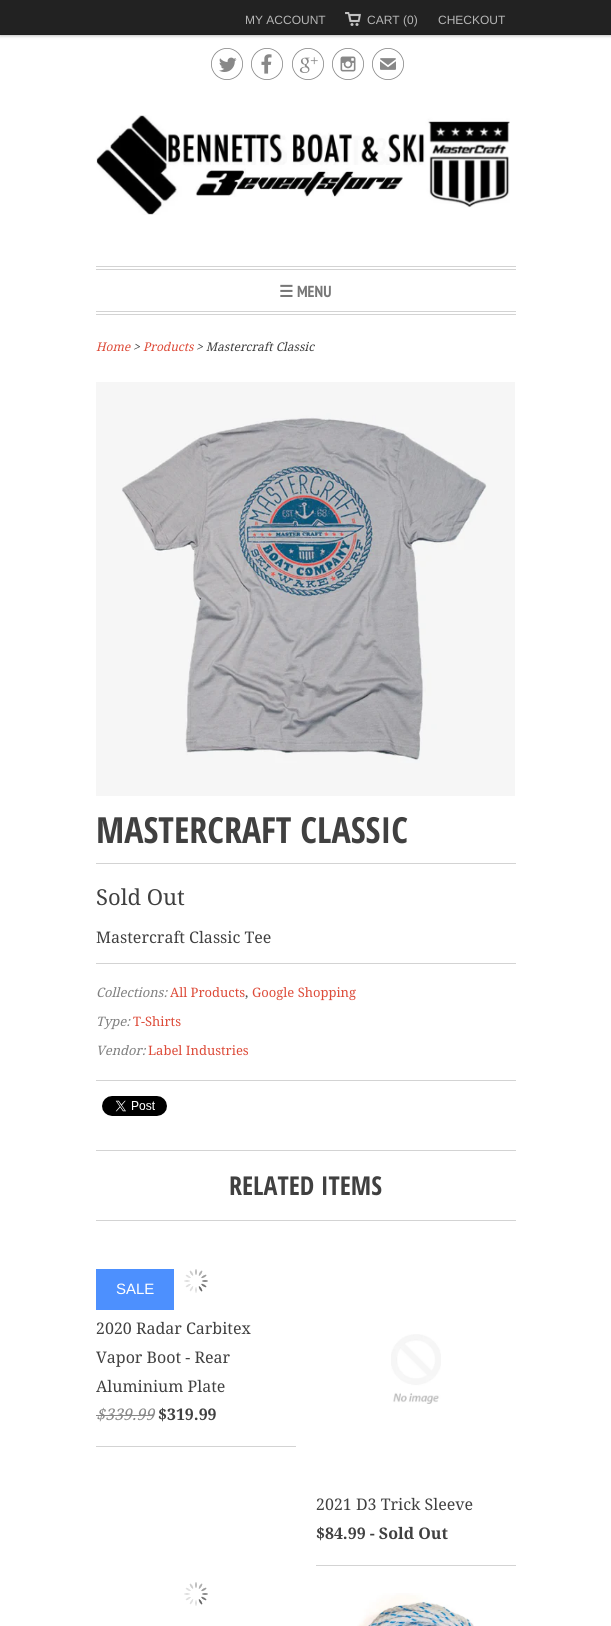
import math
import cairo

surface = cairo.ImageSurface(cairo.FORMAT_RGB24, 611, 1626)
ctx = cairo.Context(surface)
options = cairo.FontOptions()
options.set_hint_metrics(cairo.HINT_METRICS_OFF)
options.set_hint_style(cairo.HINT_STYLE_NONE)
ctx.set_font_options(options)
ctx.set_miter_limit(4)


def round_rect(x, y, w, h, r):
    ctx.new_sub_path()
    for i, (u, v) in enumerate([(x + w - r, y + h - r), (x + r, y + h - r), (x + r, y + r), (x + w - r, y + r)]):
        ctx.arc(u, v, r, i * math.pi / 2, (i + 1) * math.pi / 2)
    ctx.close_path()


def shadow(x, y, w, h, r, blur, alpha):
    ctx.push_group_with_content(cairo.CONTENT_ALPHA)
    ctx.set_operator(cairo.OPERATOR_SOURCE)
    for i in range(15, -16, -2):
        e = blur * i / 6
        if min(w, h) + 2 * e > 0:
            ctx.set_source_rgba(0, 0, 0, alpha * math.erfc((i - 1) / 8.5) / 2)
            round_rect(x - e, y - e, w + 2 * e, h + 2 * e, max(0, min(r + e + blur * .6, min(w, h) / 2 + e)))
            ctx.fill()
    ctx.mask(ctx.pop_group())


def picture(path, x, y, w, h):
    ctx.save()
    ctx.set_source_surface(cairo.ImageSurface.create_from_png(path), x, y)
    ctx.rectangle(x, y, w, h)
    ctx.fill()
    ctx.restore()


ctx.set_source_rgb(1, 1, 1)
ctx.paint()
ctx.set_source_rgb(0, 0, 0)
shadow(0, 1, 611, 35, 0, 1.5, 0.25)
ctx.set_source_rgb(0.133, 0.133, 0.133)
ctx.rectangle(0, 0, 611, 34)
ctx.fill()
ctx.set_source_rgb(0.122, 0.122, 0.122)
ctx.rectangle(0, 34, 611, 1)
ctx.fill()
ctx.select_font_face("Liberation Sans")
ctx.set_font_size(12)
ctx.set_source_rgb(0.714, 0.714, 0.714)
ctx.move_to(245, 24)
ctx.show_text("MY ACCOUNT")
picture("img1.png", 345, 12, 16, 14)
ctx.move_to(367, 24)
ctx.show_text("CART (0)")
ctx.move_to(438, 24)
ctx.show_text("CHECKOUT")
picture("img2.png", 211, 48, 32, 32)
picture("img3.png", 251, 48, 32, 32)
picture("img4.png", 292, 48, 32, 32)
picture("img5.png", 332, 48, 32, 32)
ctx.select_font_face("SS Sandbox")
ctx.set_font_size(32)
ctx.set_source_rgb(0.533, 0.533, 0.533)
ctx.move_to(372, 80)
ctx.show_text("✉")
picture("img6.png", 96, 115, 414, 100)
ctx.set_source_rgb(0.827, 0.827, 0.827)
ctx.rectangle(96, 266, 420, 1)
ctx.fill()
ctx.rectangle(96, 269, 420, 1)
ctx.fill()
ctx.rectangle(96, 311, 420, 1)
ctx.fill()
ctx.rectangle(96, 314, 420, 1)
ctx.fill()
ctx.select_font_face("DejaVu Sans", cairo.FONT_SLANT_NORMAL, cairo.FONT_WEIGHT_BOLD)
ctx.set_font_size(16)
ctx.set_source_rgb(0.467, 0.467, 0.467)
ctx.move_to(279, 297)
ctx.show_text("☰")
ctx.select_font_face("PT Sans Narrow", cairo.FONT_SLANT_NORMAL, cairo.FONT_WEIGHT_BOLD)
ctx.move_to(297, 297)
ctx.show_text("MENU")
ctx.select_font_face("Droid Serif", cairo.FONT_SLANT_ITALIC)
ctx.set_font_size(12)
ctx.set_source_rgb(0.867, 0.294, 0.224)
ctx.move_to(96, 351)
ctx.show_text("Home")
ctx.set_source_rgb(0.251, 0.251, 0.251)
ctx.move_to(133, 351)
ctx.show_text(">")
ctx.set_source_rgb(0.867, 0.294, 0.224)
ctx.move_to(143, 351)
ctx.show_text("Products")
ctx.set_source_rgb(0.251, 0.251, 0.251)
ctx.move_to(196, 351)
ctx.show_text("> Mastercraft Classic")
picture("img7.png", 96, 382, 419, 414)
ctx.set_source_rgb(0.827, 0.827, 0.827)
ctx.rectangle(96, 863, 420, 1)
ctx.fill()
ctx.select_font_face("Open Sans Condensed", cairo.FONT_SLANT_NORMAL, cairo.FONT_WEIGHT_BOLD)
ctx.set_font_size(36)
ctx.set_source_rgb(0.251, 0.251, 0.251)
ctx.move_to(96, 843)
ctx.show_text("MASTERCRAFT CLASSIC")
ctx.select_font_face("Droid Serif")
ctx.set_font_size(22)
ctx.move_to(96, 905)
ctx.show_text("Sold Out")
ctx.set_font_size(16)
ctx.move_to(96, 943)
ctx.show_text("Mastercraft Classic Tee")
ctx.set_source_rgb(0.827, 0.827, 0.827)
ctx.rectangle(96, 963, 420, 1)
ctx.fill()
ctx.select_font_face("Droid Serif", cairo.FONT_SLANT_ITALIC)
ctx.set_font_size(13)
ctx.set_source_rgb(0.502, 0.502, 0.502)
ctx.move_to(96, 997)
ctx.show_text("Collections:")
ctx.select_font_face("Droid Serif")
ctx.set_source_rgb(0.867, 0.294, 0.224)
ctx.move_to(170, 997)
ctx.show_text("All Products")
ctx.set_source_rgb(0.251, 0.251, 0.251)
ctx.move_to(245, 997)
ctx.show_text(",")
ctx.set_source_rgb(0.867, 0.294, 0.224)
ctx.move_to(252, 997)
ctx.show_text("Google Shopping")
ctx.select_font_face("Droid Serif", cairo.FONT_SLANT_ITALIC)
ctx.set_source_rgb(0.502, 0.502, 0.502)
ctx.move_to(96, 1026)
ctx.show_text("Type:")
ctx.select_font_face("Droid Serif")
ctx.set_source_rgb(0.867, 0.294, 0.224)
ctx.move_to(133, 1026)
ctx.show_text("T-Shirts")
ctx.select_font_face("Droid Serif", cairo.FONT_SLANT_ITALIC)
ctx.set_source_rgb(0.502, 0.502, 0.502)
ctx.move_to(96, 1055)
ctx.show_text("Vendor:")
ctx.select_font_face("Droid Serif")
ctx.set_source_rgb(0.867, 0.294, 0.224)
ctx.move_to(148, 1055)
ctx.show_text("Label Industries")
ctx.set_source_rgb(0.827, 0.827, 0.827)
ctx.rectangle(96, 1080, 420, 1)
ctx.fill()
picture("img8.png", 102, 1096, 65, 20)
ctx.rectangle(96, 1150, 420, 1)
ctx.fill()
ctx.rectangle(96, 1220, 420, 1)
ctx.fill()
ctx.select_font_face("Open Sans Condensed", cairo.FONT_SLANT_NORMAL, cairo.FONT_WEIGHT_BOLD)
ctx.set_font_size(26)
ctx.set_source_rgb(0.251, 0.251, 0.251)
ctx.move_to(229, 1195)
ctx.show_text("RELATED ITEMS")
ctx.set_source_rgb(0.827, 0.827, 0.827)
ctx.rectangle(96, 1446, 200, 1)
ctx.fill()
ctx.set_source_rgb(0.302, 0.565, 0.996)
ctx.rectangle(96, 1269, 78, 41)
ctx.fill()
ctx.select_font_face("Liberation Sans")
ctx.set_font_size(15)
ctx.set_source_rgb(1, 1, 1)
ctx.move_to(116, 1294)
ctx.show_text("SALE")
picture("img9.png", 184, 1269, 24, 24)
ctx.select_font_face("Droid Serif")
ctx.set_font_size(16)
ctx.set_source_rgb(0.251, 0.251, 0.251)
ctx.move_to(96, 1334)
ctx.show_text("2020 Radar Carbitex")
ctx.move_to(96, 1363)
ctx.show_text("Vapor Boot - Rear")
ctx.move_to(96, 1392)
ctx.show_text("Aluminium Plate")
ctx.select_font_face("Droid Serif", cairo.FONT_SLANT_ITALIC)
ctx.set_source_rgb(0.533, 0.533, 0.533)
ctx.move_to(96, 1420)
ctx.show_text("$339.99")
ctx.rectangle(96, 1415, 58, 1)
ctx.fill()
ctx.select_font_face("Droid Serif", cairo.FONT_SLANT_NORMAL, cairo.FONT_WEIGHT_BOLD)
ctx.set_source_rgb(0.251, 0.251, 0.251)
ctx.move_to(158, 1420)
ctx.show_text("$319.99")
ctx.set_source_rgb(0.827, 0.827, 0.827)
ctx.rectangle(316, 1565, 200, 1)
ctx.fill()
picture("img10.png", 391, 1334, 50, 70)
ctx.select_font_face("Droid Serif")
ctx.set_source_rgb(0.251, 0.251, 0.251)
ctx.move_to(316, 1510)
ctx.show_text("2021 D3 Trick Sleeve")
ctx.select_font_face("Droid Serif", cairo.FONT_SLANT_NORMAL, cairo.FONT_WEIGHT_BOLD)
ctx.move_to(316, 1539)
ctx.show_text("$84.99 - Sold Out")
picture("img9.png", 184, 1582, 24, 24)
picture("img11.png", 357, 1593, 117, 33)
surface.write_to_png("page.png")
